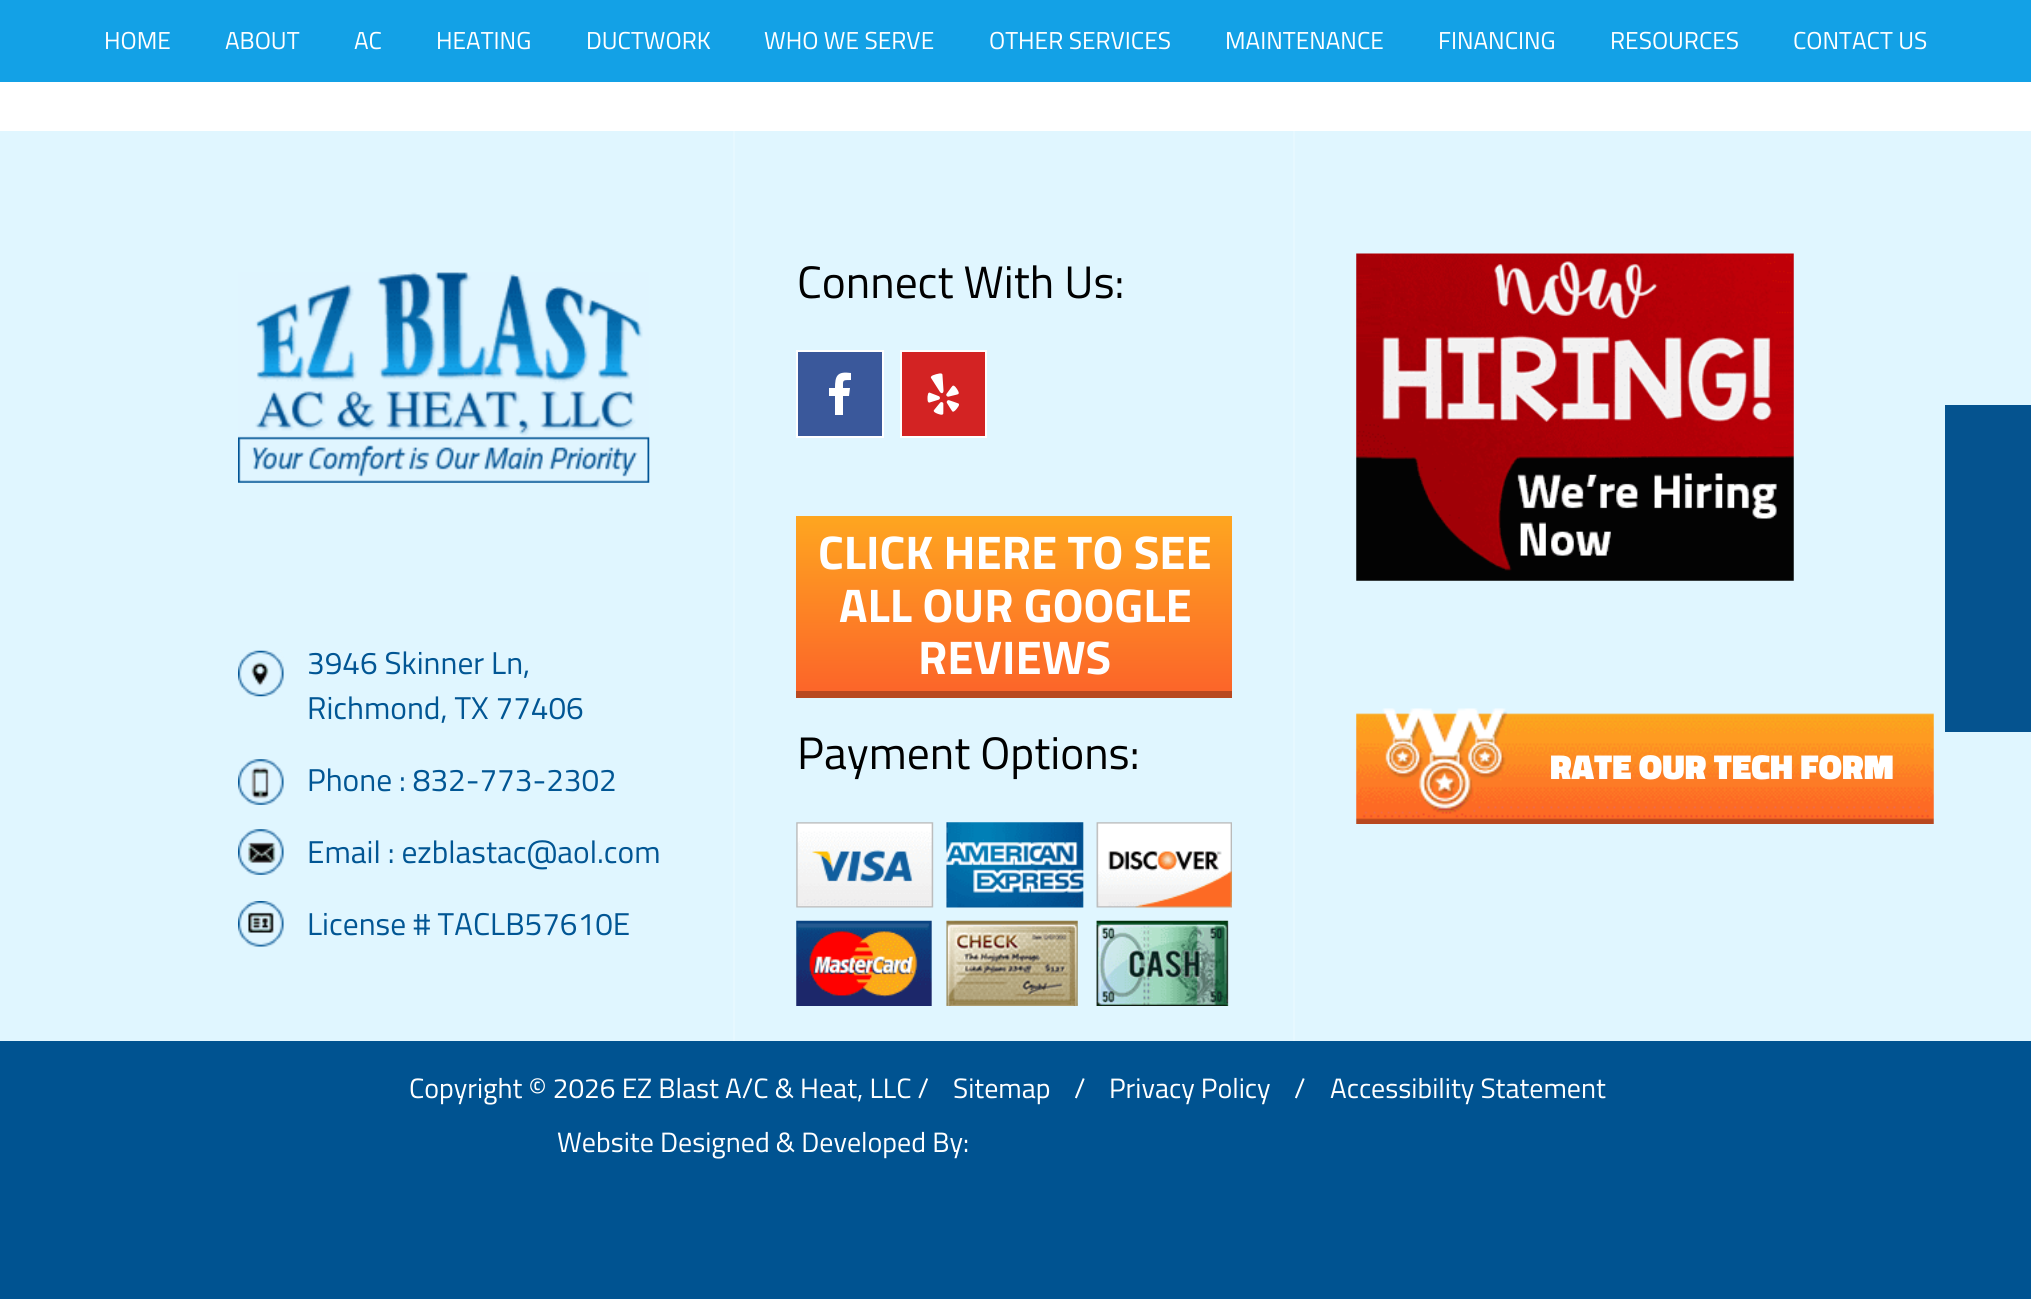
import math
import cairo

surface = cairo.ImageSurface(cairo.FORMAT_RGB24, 2031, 1299)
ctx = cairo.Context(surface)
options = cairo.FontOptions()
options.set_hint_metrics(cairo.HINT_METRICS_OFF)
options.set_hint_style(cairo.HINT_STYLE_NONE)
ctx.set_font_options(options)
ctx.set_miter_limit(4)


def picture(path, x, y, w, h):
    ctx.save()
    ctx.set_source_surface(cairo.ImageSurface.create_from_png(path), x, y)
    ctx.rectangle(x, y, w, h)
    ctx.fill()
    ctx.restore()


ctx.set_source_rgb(1, 1, 1)
ctx.paint()
ctx.set_source_rgb(0.075, 0.631, 0.902)
ctx.rectangle(0, 0, 2031, 82)
ctx.fill()
ctx.select_font_face("Titillium Web")
ctx.set_font_size(24.5)
ctx.set_source_rgb(1, 1, 1)
ctx.move_to(104, 49)
ctx.show_text("HOME")
ctx.move_to(225, 49)
ctx.show_text("ABOUT")
ctx.move_to(354, 49)
ctx.show_text("AC")
ctx.move_to(436, 49)
ctx.show_text("HEATING")
ctx.move_to(586, 49)
ctx.show_text("DUCTWORK")
ctx.move_to(764, 49)
ctx.show_text("WHO WE SERVE")
ctx.move_to(989, 49)
ctx.show_text("OTHER SERVICES")
ctx.move_to(1225, 49)
ctx.show_text("MAINTENANCE")
ctx.move_to(1438, 49)
ctx.show_text("FINANCING")
ctx.move_to(1610, 49)
ctx.show_text("RESOURCES")
ctx.move_to(1793, 49)
ctx.show_text("CONTACT US")
ctx.set_source_rgb(0.878, 0.961, 1)
ctx.rectangle(0, 131, 2031, 910)
ctx.fill()
ctx.set_source_rgb(0.902, 0.969, 1)
ctx.rectangle(733, 131, 2, 910)
ctx.fill()
picture("img1.png", 238, 272, 412, 211)
picture("img2.png", 238, 650, 46, 47)
ctx.set_font_size(31.5)
ctx.set_source_rgb(0.004, 0.337, 0.58)
ctx.move_to(307, 674)
ctx.show_text("3946 Skinner Ln,")
ctx.move_to(307, 719)
ctx.show_text("Richmond, TX 77406")
picture("img3.png", 238, 759, 46, 46)
ctx.move_to(307, 791)
ctx.show_text("Phone : 832-773-2302")
picture("img4.png", 238, 829, 46, 46)
ctx.move_to(307, 863)
ctx.show_text("Email : ezblastac@aol.com")
picture("img5.png", 238, 901, 46, 46)
ctx.move_to(307, 935)
ctx.show_text("License # TACLB57610E")
ctx.set_source_rgb(0.902, 0.969, 1)
ctx.rectangle(1293, 131, 2, 910)
ctx.fill()
ctx.set_font_size(45.5)
ctx.set_source_rgb(0, 0, 0)
ctx.move_to(797, 298)
ctx.show_text("Connect With Us:")
ctx.set_source_rgb(0.227, 0.345, 0.608)
ctx.rectangle(797, 351, 86, 86)
ctx.fill_preserve()
ctx.set_source_rgb(1, 1, 1)
ctx.stroke()
ctx.new_path()
ctx.move_to(835, 415)
ctx.line_to(835, 396)
ctx.line_to(829, 396)
ctx.line_to(829, 388)
ctx.line_to(835, 388)
ctx.curve_to(835, 376, 837, 371, 851, 373)
ctx.line_to(851, 380)
ctx.curve_to(842, 380, 843, 380, 843, 388)
ctx.line_to(850, 388)
ctx.line_to(849, 396)
ctx.line_to(843, 396)
ctx.line_to(843, 415)
ctx.close_path()
ctx.fill()
ctx.set_source_rgb(0.827, 0.137, 0.137)
ctx.rectangle(901, 351, 85, 86)
ctx.fill_preserve()
ctx.set_source_rgb(1, 1, 1)
ctx.stroke()
picture("img6.png", 927, 373, 32, 42)
gradient = cairo.LinearGradient(796, 516, 796, 691)
gradient.add_color_stop_rgba(0, 0.996, 0.651, 0.125, 1)
gradient.add_color_stop_rgba(1, 0.988, 0.396, 0.161, 1)
ctx.set_source(gradient)
ctx.rectangle(796, 516, 436, 175)
ctx.fill()
ctx.set_source_rgb(0.722, 0.282, 0.122)
ctx.rectangle(796, 691, 436, 7)
ctx.fill()
ctx.select_font_face("Titillium Web", cairo.FONT_SLANT_NORMAL, cairo.FONT_WEIGHT_BOLD)
ctx.set_font_size(47.25)
ctx.set_source_rgb(1, 1, 1)
ctx.move_to(818, 569)
ctx.show_text("CLICK HERE TO SEE")
ctx.move_to(839, 622)
ctx.show_text("ALL OUR GOOGLE")
ctx.move_to(918, 674)
ctx.show_text("REVIEWS")
ctx.select_font_face("Titillium Web")
ctx.set_font_size(45.5)
ctx.set_source_rgb(0, 0, 0)
ctx.move_to(797, 769)
ctx.show_text("Payment Options:")
picture("img7.png", 796, 822, 436, 184)
picture("img8.png", 1356, 253, 438, 328)
picture("img9.png", 1356, 708, 578, 116)
ctx.select_font_face("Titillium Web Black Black")
ctx.set_font_size(35)
ctx.set_source_rgb(1, 1, 1)
ctx.move_to(1550, 779)
ctx.show_text("RATE OUR TECH FORM")
ctx.set_source_rgb(0, 0.325, 0.569)
ctx.rectangle(0, 1041, 2031, 258)
ctx.fill()
ctx.select_font_face("Titillium Web")
ctx.set_font_size(28)
ctx.set_source_rgb(1, 1, 1)
ctx.move_to(409, 1098)
ctx.show_text("Copyright © 2026 EZ Blast A/C & Heat, LLC /")
ctx.move_to(953, 1098)
ctx.show_text("Sitemap")
ctx.move_to(1074, 1098)
ctx.show_text("/")
ctx.move_to(1109, 1098)
ctx.show_text("Privacy Policy")
ctx.move_to(1294, 1098)
ctx.show_text("/")
ctx.move_to(1330, 1098)
ctx.show_text("Accessibility Statement")
ctx.move_to(557, 1152)
ctx.show_text("Website Designed & Developed By:")
ctx.set_source_rgb(0.02, 0.325, 0.561)
ctx.rectangle(1945, 405, 86, 327)
ctx.fill()
surface.write_to_png("page.png")
